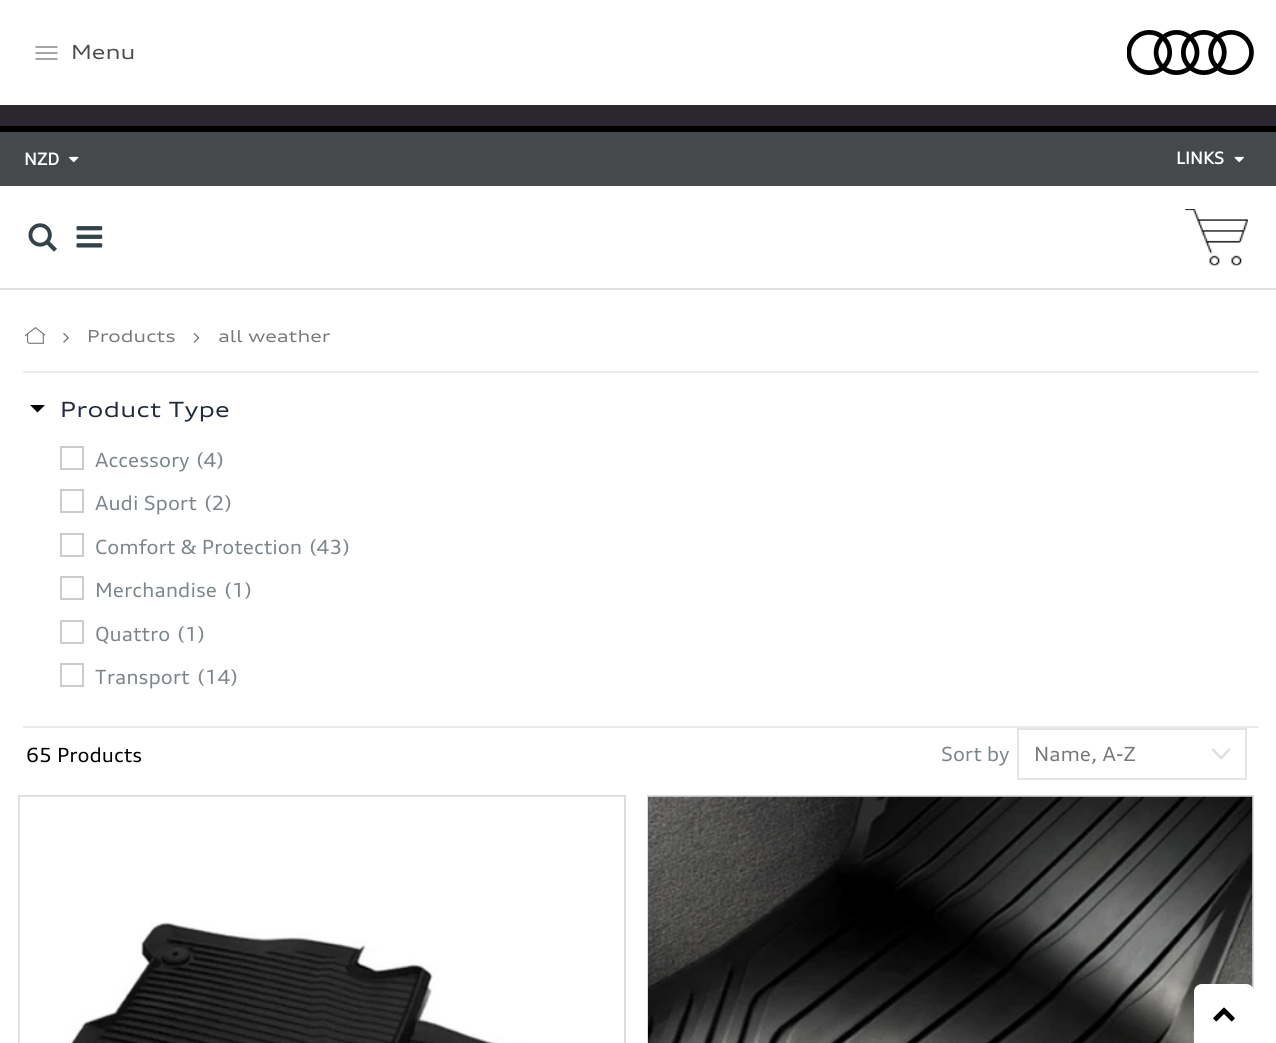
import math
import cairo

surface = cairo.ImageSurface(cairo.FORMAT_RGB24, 1276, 1043)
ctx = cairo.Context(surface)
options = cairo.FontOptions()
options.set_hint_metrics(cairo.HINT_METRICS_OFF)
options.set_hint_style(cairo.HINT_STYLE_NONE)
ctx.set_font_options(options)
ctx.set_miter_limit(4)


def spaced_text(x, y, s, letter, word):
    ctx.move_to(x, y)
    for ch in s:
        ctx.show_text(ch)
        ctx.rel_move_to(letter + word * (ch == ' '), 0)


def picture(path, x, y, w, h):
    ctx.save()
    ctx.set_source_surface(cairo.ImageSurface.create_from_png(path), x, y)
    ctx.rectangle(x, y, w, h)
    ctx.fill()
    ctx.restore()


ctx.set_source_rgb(1, 1, 1)
ctx.paint()
ctx.new_path()
ctx.move_to(35.5, 59)
ctx.line_to(57.5, 59)
ctx.move_to(35.5, 53)
ctx.line_to(57.5, 53)
ctx.move_to(35.5, 47)
ctx.line_to(57.5, 47)
ctx.set_source_rgb(0.298, 0.298, 0.298)
ctx.set_line_width(1)
ctx.stroke()
ctx.select_font_face("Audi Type")
ctx.set_font_size(19.5)
ctx.move_to(71, 59)
ctx.show_text("Menu")
picture("img1.png", 1127, 30, 127, 45)
ctx.set_source_rgb(0.169, 0.149, 0.184)
ctx.rectangle(0, 105, 1276, 21)
ctx.fill()
ctx.set_source_rgb(0, 0, 0)
ctx.rectangle(0, 126, 1276, 6)
ctx.fill()
ctx.set_source_rgb(0.882, 0.882, 0.882)
ctx.rectangle(0, 288, 1276, 2)
ctx.fill()
ctx.set_source_rgb(0.271, 0.286, 0.294)
ctx.rectangle(0, 132, 1276, 54)
ctx.fill()
ctx.select_font_face("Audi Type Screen", cairo.FONT_SLANT_NORMAL, cairo.FONT_WEIGHT_BOLD)
ctx.set_font_size(16.5)
ctx.set_source_rgb(1, 1, 1)
ctx.move_to(24, 165)
ctx.show_text("NZD")
picture("img2.png", 69, 156, 10, 7)
ctx.move_to(1176, 164)
ctx.show_text("LINKS")
picture("img3.png", 1234, 156, 10, 7)
picture("img4.png", 28, 223, 29, 29)
picture("img5.png", 76, 226, 27, 22)
picture("img6.png", 1185, 209, 63, 57)
picture("img7.png", 24, 327, 21, 17)
picture("img8.png", 63, 332, 6, 11)
ctx.select_font_face("Audi Type")
ctx.set_source_rgb(0.467, 0.467, 0.467)
ctx.move_to(87, 342)
ctx.show_text("Products")
picture("img9.png", 193, 332, 7, 11)
ctx.move_to(218, 342)
ctx.show_text("all weather")
ctx.set_source_rgb(0.918, 0.918, 0.918)
ctx.rectangle(23, 371, 1236, 2)
ctx.fill()
ctx.rectangle(23, 726, 1236, 2)
ctx.fill()
ctx.set_source_rgb(0, 0, 0)
ctx.new_path()
ctx.move_to(30, 405)
ctx.line_to(45, 405)
ctx.line_to(37.5, 412.5)
ctx.close_path()
ctx.fill()
ctx.set_font_size(21)
ctx.set_source_rgb(0.129, 0.161, 0.235)
spaced_text(60, 417, "Product Type", 0.25, 0)
ctx.rectangle(61, 447, 22, 22)
ctx.set_source_rgb(0.8, 0.8, 0.8)
ctx.set_line_width(2)
ctx.stroke()
ctx.select_font_face("Audi Type Screen")
ctx.set_font_size(19.5)
ctx.set_source_rgb(0.482, 0.522, 0.541)
ctx.move_to(95, 467)
ctx.show_text("Accessory")
ctx.move_to(196, 467)
ctx.show_text("(4)")
ctx.rectangle(61, 490, 22, 22)
ctx.set_source_rgb(0.8, 0.8, 0.8)
ctx.stroke()
ctx.set_source_rgb(0.482, 0.522, 0.541)
ctx.move_to(95, 510)
ctx.show_text("Audi Sport")
ctx.move_to(204, 510)
ctx.show_text("(2)")
ctx.rectangle(61, 534, 22, 22)
ctx.set_source_rgb(0.8, 0.8, 0.8)
ctx.stroke()
ctx.set_source_rgb(0.482, 0.522, 0.541)
ctx.move_to(95, 554)
ctx.show_text("Comfort & Protection")
ctx.move_to(309, 554)
ctx.show_text("(43)")
ctx.rectangle(61, 577, 22, 22)
ctx.set_source_rgb(0.8, 0.8, 0.8)
ctx.stroke()
ctx.set_source_rgb(0.482, 0.522, 0.541)
ctx.move_to(95, 597)
ctx.show_text("Merchandise")
ctx.move_to(224, 597)
ctx.show_text("(1)")
ctx.rectangle(61, 621, 22, 22)
ctx.set_source_rgb(0.8, 0.8, 0.8)
ctx.stroke()
ctx.set_source_rgb(0.482, 0.522, 0.541)
ctx.move_to(95, 641)
ctx.show_text("Quattro")
ctx.move_to(177, 641)
ctx.show_text("(1)")
ctx.rectangle(61, 664, 22, 22)
ctx.set_source_rgb(0.8, 0.8, 0.8)
ctx.stroke()
ctx.set_source_rgb(0.482, 0.522, 0.541)
ctx.move_to(95, 684)
ctx.show_text("Transport")
ctx.move_to(197, 684)
ctx.show_text("(14)")
ctx.set_source_rgb(0, 0, 0)
ctx.move_to(26, 762)
ctx.show_text("65 Products")
ctx.set_source_rgb(0.482, 0.522, 0.541)
ctx.move_to(941, 761)
ctx.show_text("Sort by")
picture("img10.png", 1211, 748, 20, 12)
ctx.rectangle(1018, 729, 228, 50)
ctx.set_source_rgb(0.894, 0.894, 0.894)
ctx.stroke()
ctx.set_source_rgb(0.467, 0.467, 0.467)
ctx.move_to(1034, 761)
ctx.show_text("Name, A-Z")
ctx.rectangle(19, 796, 606, 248)
ctx.set_source_rgb(0.867, 0.867, 0.867)
ctx.stroke()
picture("img11.png", 19, 796, 605, 247)
ctx.rectangle(648, 796, 605, 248)
ctx.stroke()
picture("img12.png", 648, 796, 605, 247)
ctx.set_source_rgb(1, 1, 1)
ctx.new_path()
ctx.move_to(1202, 984)
ctx.line_to(1246, 984)
ctx.curve_to(1250.5, 984, 1254, 987.5, 1254, 992)
ctx.line_to(1254, 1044)
ctx.line_to(1194, 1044)
ctx.line_to(1194, 992)
ctx.curve_to(1194, 987.5, 1197.5, 984, 1202, 984)
ctx.close_path()
ctx.fill()
picture("img13.png", 1213, 1007, 22, 15)
surface.write_to_png("page.png")
